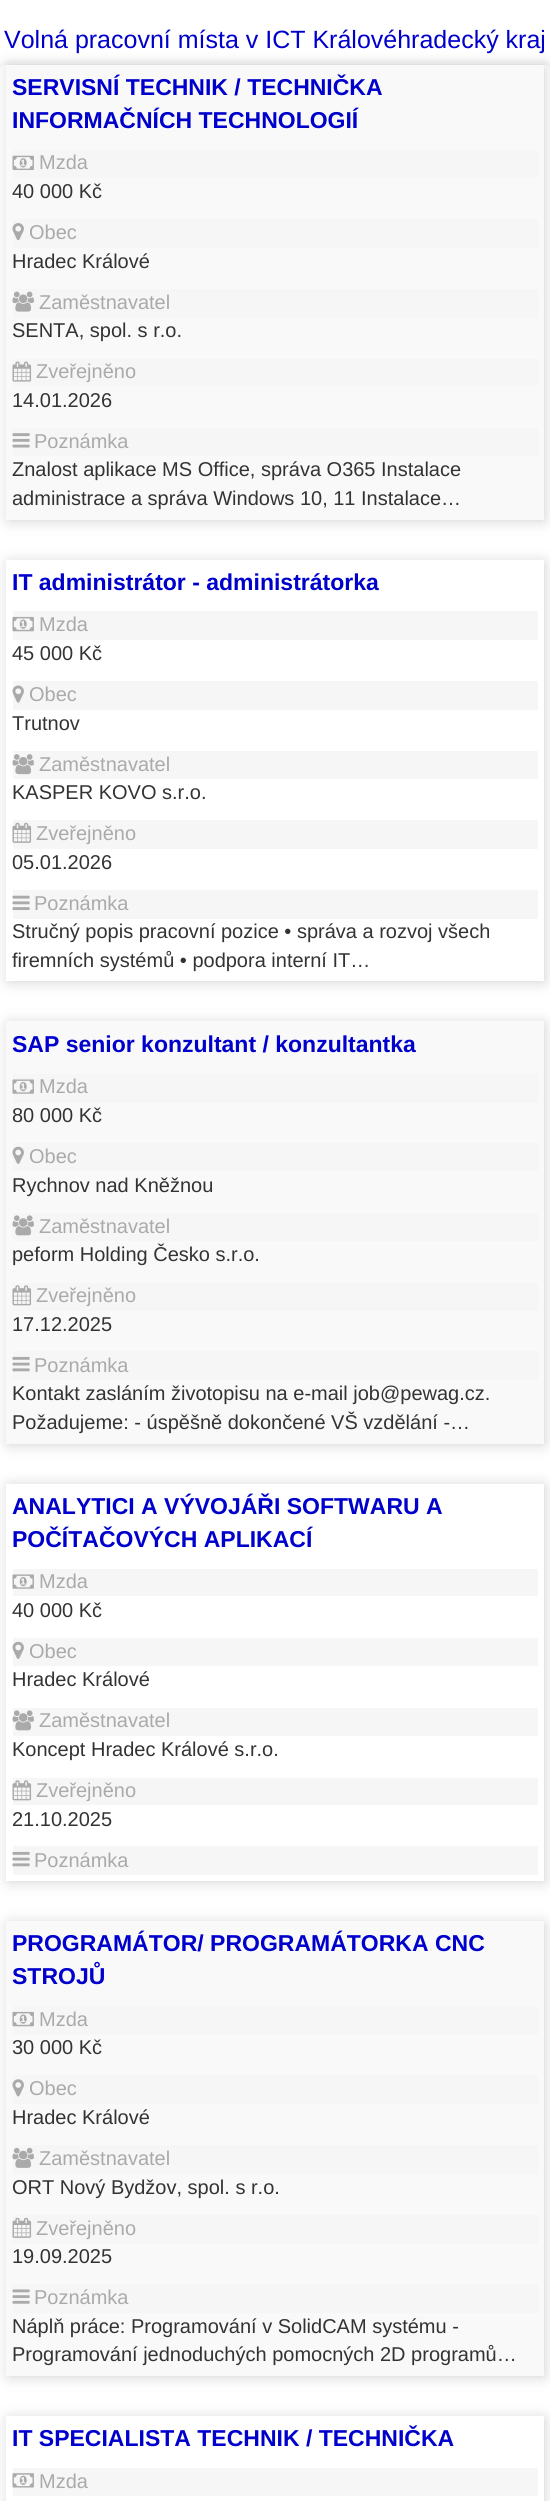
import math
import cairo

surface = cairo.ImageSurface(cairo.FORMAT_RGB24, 550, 2501)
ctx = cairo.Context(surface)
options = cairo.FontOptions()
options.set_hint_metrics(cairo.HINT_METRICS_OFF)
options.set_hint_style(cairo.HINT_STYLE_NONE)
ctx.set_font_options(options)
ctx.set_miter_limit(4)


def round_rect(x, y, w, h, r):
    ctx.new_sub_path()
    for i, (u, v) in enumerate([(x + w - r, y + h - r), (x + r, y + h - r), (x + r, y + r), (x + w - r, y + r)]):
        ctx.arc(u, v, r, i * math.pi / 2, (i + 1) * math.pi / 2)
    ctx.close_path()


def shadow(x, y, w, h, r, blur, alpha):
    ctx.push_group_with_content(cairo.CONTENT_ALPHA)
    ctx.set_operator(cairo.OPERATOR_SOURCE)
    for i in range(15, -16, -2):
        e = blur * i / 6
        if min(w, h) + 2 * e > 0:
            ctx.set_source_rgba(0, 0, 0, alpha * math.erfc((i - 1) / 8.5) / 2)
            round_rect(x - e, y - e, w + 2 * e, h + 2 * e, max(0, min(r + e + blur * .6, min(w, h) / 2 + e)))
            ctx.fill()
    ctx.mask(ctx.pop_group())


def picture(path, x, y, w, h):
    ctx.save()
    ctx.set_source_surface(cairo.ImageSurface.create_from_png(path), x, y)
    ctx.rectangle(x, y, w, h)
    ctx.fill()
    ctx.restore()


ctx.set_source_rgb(1, 1, 1)
ctx.paint()
ctx.set_source_rgb(0, 0, 0)
shadow(3, 68, 547, 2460, 4, 7.5, 0.2)
ctx.set_source_rgb(1, 1, 1)
round_rect(0, 65, 550, 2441, 5)
ctx.fill()
ctx.set_source_rgb(0, 0, 0)
shadow(9, 68, 535, 452, 0, 7.5, 0.2)
ctx.select_font_face("Liberation Sans")
ctx.set_font_size(25)
ctx.set_source_rgb(0, 0, 0.8)
ctx.move_to(4, 48)
ctx.show_text("Volná pracovní místa v ICT Královéhradecký kraj")
ctx.set_source_rgb(0.976, 0.976, 0.976)
ctx.rectangle(6, 65, 538, 455)
ctx.fill()
ctx.select_font_face("Liberation Sans", cairo.FONT_SLANT_NORMAL, cairo.FONT_WEIGHT_BOLD)
ctx.set_font_size(23)
ctx.set_source_rgb(0, 0, 0.8)
ctx.move_to(12, 95)
ctx.show_text("SERVISNÍ TECHNIK / TECHNIČKA")
ctx.move_to(12, 128)
ctx.show_text("INFORMAČNÍCH TECHNOLOGIÍ")
ctx.set_source_rgb(0.961, 0.961, 0.961)
ctx.rectangle(13, 150, 525, 28)
ctx.fill()
picture("img1.png", 12, 155, 22, 15)
ctx.select_font_face("Liberation Sans")
ctx.set_font_size(20)
ctx.set_source_rgb(0.667, 0.667, 0.667)
ctx.move_to(39, 169)
ctx.show_text("Mzda")
ctx.set_source_rgb(0.2, 0.2, 0.2)
ctx.move_to(12, 198)
ctx.show_text("40 000 Kč")
ctx.set_source_rgb(0.961, 0.961, 0.961)
ctx.rectangle(13, 219, 525, 29)
ctx.fill()
picture("img2.png", 12, 223, 12, 18)
ctx.set_source_rgb(0.667, 0.667, 0.667)
ctx.move_to(29, 239)
ctx.show_text("Obec")
ctx.set_source_rgb(0.2, 0.2, 0.2)
ctx.move_to(12, 268)
ctx.show_text("Hradec Králové")
ctx.set_source_rgb(0.961, 0.961, 0.961)
ctx.rectangle(13, 289, 525, 29)
ctx.fill()
picture("img3.png", 12, 291, 22, 21)
ctx.set_source_rgb(0.667, 0.667, 0.667)
ctx.move_to(39, 309)
ctx.show_text("Zaměstnavatel")
ctx.set_source_rgb(0.2, 0.2, 0.2)
ctx.move_to(12, 337)
ctx.show_text("SENTA, spol. s r.o.")
ctx.set_source_rgb(0.961, 0.961, 0.961)
ctx.rectangle(13, 359, 525, 27)
ctx.fill()
picture("img4.png", 12, 361, 20, 21)
ctx.set_source_rgb(0.667, 0.667, 0.667)
ctx.move_to(36, 378)
ctx.show_text("Zveřejněno")
ctx.set_source_rgb(0.2, 0.2, 0.2)
ctx.move_to(12, 407)
ctx.show_text("14.01.2026")
ctx.set_source_rgb(0.961, 0.961, 0.961)
ctx.rectangle(13, 428, 525, 28)
ctx.fill()
picture("img5.png", 12, 433, 18, 15)
ctx.set_source_rgb(0.667, 0.667, 0.667)
ctx.move_to(34, 448)
ctx.show_text("Poznámka")
ctx.set_source_rgb(0.2, 0.2, 0.2)
ctx.move_to(12, 476)
ctx.show_text("Znalost aplikace MS Office, správa O365 Instalace")
ctx.move_to(12, 505)
ctx.show_text("administrace a správa Windows 10, 11 Instalace…")
ctx.save()
ctx.set_fill_rule(cairo.FILL_RULE_EVEN_ODD)
ctx.new_path()
ctx.move_to(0, 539)
ctx.line_to(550, 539)
ctx.line_to(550, 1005)
ctx.line_to(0, 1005)
ctx.close_path()
ctx.move_to(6, 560)
ctx.line_to(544, 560)
ctx.line_to(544, 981)
ctx.line_to(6, 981)
ctx.close_path()
ctx.clip()
ctx.set_source_rgb(0, 0, 0)
shadow(9, 563, 535, 418, 0, 7.5, 0.2)
ctx.restore()
ctx.select_font_face("Liberation Sans", cairo.FONT_SLANT_NORMAL, cairo.FONT_WEIGHT_BOLD)
ctx.set_font_size(23)
ctx.set_source_rgb(0, 0, 0.8)
ctx.move_to(12, 590)
ctx.show_text("IT administrátor - administrátorka")
ctx.set_source_rgb(0.961, 0.961, 0.961)
ctx.rectangle(13, 611, 525, 29)
ctx.fill()
picture("img6.png", 12, 616, 22, 16)
ctx.select_font_face("Liberation Sans")
ctx.set_font_size(20)
ctx.set_source_rgb(0.667, 0.667, 0.667)
ctx.move_to(39, 631)
ctx.show_text("Mzda")
ctx.set_source_rgb(0.2, 0.2, 0.2)
ctx.move_to(12, 660)
ctx.show_text("45 000 Kč")
ctx.set_source_rgb(0.961, 0.961, 0.961)
ctx.rectangle(13, 681, 525, 29)
ctx.fill()
picture("img7.png", 12, 685, 12, 18)
ctx.set_source_rgb(0.667, 0.667, 0.667)
ctx.move_to(29, 701)
ctx.show_text("Obec")
ctx.set_source_rgb(0.2, 0.2, 0.2)
ctx.move_to(12, 730)
ctx.show_text("Trutnov")
ctx.set_source_rgb(0.961, 0.961, 0.961)
ctx.rectangle(13, 751, 525, 28)
ctx.fill()
picture("img8.png", 12, 754, 22, 21)
ctx.set_source_rgb(0.667, 0.667, 0.667)
ctx.move_to(39, 771)
ctx.show_text("Zaměstnavatel")
ctx.set_source_rgb(0.2, 0.2, 0.2)
ctx.move_to(12, 799)
ctx.show_text("KASPER KOVO s.r.o.")
ctx.set_source_rgb(0.961, 0.961, 0.961)
ctx.rectangle(13, 820, 525, 29)
ctx.fill()
picture("img9.png", 12, 822, 20, 21)
ctx.set_source_rgb(0.667, 0.667, 0.667)
ctx.move_to(36, 840)
ctx.show_text("Zveřejněno")
ctx.set_source_rgb(0.2, 0.2, 0.2)
ctx.move_to(12, 869)
ctx.show_text("05.01.2026")
ctx.set_source_rgb(0.961, 0.961, 0.961)
ctx.rectangle(13, 890, 525, 29)
ctx.fill()
picture("img10.png", 12, 895, 18, 15)
ctx.set_source_rgb(0.667, 0.667, 0.667)
ctx.move_to(34, 910)
ctx.show_text("Poznámka")
ctx.set_source_rgb(0.2, 0.2, 0.2)
ctx.move_to(12, 938)
ctx.show_text("Stručný popis pracovní pozice • správa a rozvoj všech")
ctx.move_to(12, 967)
ctx.show_text("firemních systémů • podpora interní IT…")
ctx.set_source_rgb(0, 0, 0)
shadow(9, 1024, 535, 420, 0, 7.5, 0.2)
ctx.set_source_rgb(0.976, 0.976, 0.976)
ctx.rectangle(6, 1021, 538, 423)
ctx.fill()
ctx.select_font_face("Liberation Sans", cairo.FONT_SLANT_NORMAL, cairo.FONT_WEIGHT_BOLD)
ctx.set_font_size(23)
ctx.set_source_rgb(0, 0, 0.8)
ctx.move_to(12, 1052)
ctx.show_text("SAP senior konzultant / konzultantka")
ctx.set_source_rgb(0.961, 0.961, 0.961)
ctx.rectangle(13, 1074, 525, 29)
ctx.fill()
picture("img11.png", 12, 1079, 22, 15)
ctx.select_font_face("Liberation Sans")
ctx.set_font_size(20)
ctx.set_source_rgb(0.667, 0.667, 0.667)
ctx.move_to(39, 1093)
ctx.show_text("Mzda")
ctx.set_source_rgb(0.2, 0.2, 0.2)
ctx.move_to(12, 1122)
ctx.show_text("80 000 Kč")
ctx.set_source_rgb(0.961, 0.961, 0.961)
ctx.rectangle(13, 1143, 525, 28)
ctx.fill()
picture("img12.png", 12, 1146, 12, 18)
ctx.set_source_rgb(0.667, 0.667, 0.667)
ctx.move_to(29, 1163)
ctx.show_text("Obec")
ctx.set_source_rgb(0.2, 0.2, 0.2)
ctx.move_to(12, 1192)
ctx.show_text("Rychnov nad Kněžnou")
ctx.set_source_rgb(0.961, 0.961, 0.961)
ctx.rectangle(13, 1213, 525, 28)
ctx.fill()
picture("img13.png", 12, 1215, 22, 21)
ctx.set_source_rgb(0.667, 0.667, 0.667)
ctx.move_to(39, 1233)
ctx.show_text("Zaměstnavatel")
ctx.set_source_rgb(0.2, 0.2, 0.2)
ctx.move_to(12, 1261)
ctx.show_text("peform Holding Česko s.r.o.")
ctx.set_source_rgb(0.961, 0.961, 0.961)
ctx.rectangle(13, 1283, 525, 28)
ctx.fill()
picture("img14.png", 12, 1285, 20, 21)
ctx.set_source_rgb(0.667, 0.667, 0.667)
ctx.move_to(36, 1302)
ctx.show_text("Zveřejněno")
ctx.set_source_rgb(0.2, 0.2, 0.2)
ctx.move_to(12, 1331)
ctx.show_text("17.12.2025")
ctx.set_source_rgb(0.961, 0.961, 0.961)
ctx.rectangle(13, 1351, 525, 29)
ctx.fill()
picture("img15.png", 12, 1356, 18, 16)
ctx.set_source_rgb(0.667, 0.667, 0.667)
ctx.move_to(34, 1372)
ctx.show_text("Poznámka")
ctx.set_source_rgb(0.2, 0.2, 0.2)
ctx.move_to(12, 1400)
ctx.show_text("Kontakt zasláním životopisu na e-mail job@pewag.cz.")
ctx.move_to(12, 1429)
ctx.show_text("Požadujeme: - úspěšně dokončené VŠ vzdělání -…")
ctx.save()
ctx.set_fill_rule(cairo.FILL_RULE_EVEN_ODD)
ctx.new_path()
ctx.move_to(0, 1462)
ctx.line_to(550, 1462)
ctx.line_to(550, 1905)
ctx.line_to(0, 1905)
ctx.close_path()
ctx.move_to(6, 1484)
ctx.line_to(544, 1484)
ctx.line_to(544, 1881)
ctx.line_to(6, 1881)
ctx.close_path()
ctx.clip()
ctx.set_source_rgb(0, 0, 0)
shadow(9, 1486, 535, 395, 0, 7.5, 0.2)
ctx.restore()
ctx.select_font_face("Liberation Sans", cairo.FONT_SLANT_NORMAL, cairo.FONT_WEIGHT_BOLD)
ctx.set_font_size(23)
ctx.set_source_rgb(0, 0, 0.8)
ctx.move_to(12, 1514)
ctx.show_text("ANALYTICI A VÝVOJÁŘI SOFTWARU A")
ctx.move_to(12, 1547)
ctx.show_text("POČÍTAČOVÝCH APLIKACÍ")
ctx.set_source_rgb(0.961, 0.961, 0.961)
ctx.rectangle(13, 1569, 525, 27)
ctx.fill()
picture("img16.png", 12, 1574, 22, 15)
ctx.select_font_face("Liberation Sans")
ctx.set_font_size(20)
ctx.set_source_rgb(0.667, 0.667, 0.667)
ctx.move_to(39, 1588)
ctx.show_text("Mzda")
ctx.set_source_rgb(0.2, 0.2, 0.2)
ctx.move_to(12, 1617)
ctx.show_text("40 000 Kč")
ctx.set_source_rgb(0.961, 0.961, 0.961)
ctx.rectangle(13, 1638, 525, 28)
ctx.fill()
picture("img17.png", 12, 1641, 12, 18)
ctx.set_source_rgb(0.667, 0.667, 0.667)
ctx.move_to(29, 1658)
ctx.show_text("Obec")
ctx.set_source_rgb(0.2, 0.2, 0.2)
ctx.move_to(12, 1686)
ctx.show_text("Hradec Králové")
ctx.set_source_rgb(0.961, 0.961, 0.961)
ctx.rectangle(13, 1708, 525, 28)
ctx.fill()
picture("img18.png", 12, 1710, 22, 21)
ctx.set_source_rgb(0.667, 0.667, 0.667)
ctx.move_to(39, 1727)
ctx.show_text("Zaměstnavatel")
ctx.set_source_rgb(0.2, 0.2, 0.2)
ctx.move_to(12, 1756)
ctx.show_text("Koncept Hradec Králové s.r.o.")
ctx.set_source_rgb(0.961, 0.961, 0.961)
ctx.rectangle(13, 1778, 525, 27)
ctx.fill()
picture("img19.png", 12, 1780, 20, 21)
ctx.set_source_rgb(0.667, 0.667, 0.667)
ctx.move_to(36, 1797)
ctx.show_text("Zveřejněno")
ctx.set_source_rgb(0.2, 0.2, 0.2)
ctx.move_to(12, 1826)
ctx.show_text("21.10.2025")
ctx.set_source_rgb(0.961, 0.961, 0.961)
ctx.rectangle(13, 1846, 525, 29)
ctx.fill()
picture("img20.png", 12, 1851, 18, 16)
ctx.set_source_rgb(0.667, 0.667, 0.667)
ctx.move_to(34, 1867)
ctx.show_text("Poznámka")
ctx.set_source_rgb(0, 0, 0)
shadow(9, 1924, 535, 452, 0, 7.5, 0.2)
ctx.set_source_rgb(0.976, 0.976, 0.976)
ctx.rectangle(6, 1921, 538, 455)
ctx.fill()
ctx.select_font_face("Liberation Sans", cairo.FONT_SLANT_NORMAL, cairo.FONT_WEIGHT_BOLD)
ctx.set_font_size(23)
ctx.set_source_rgb(0, 0, 0.8)
ctx.move_to(12, 1951)
ctx.show_text("PROGRAMÁTOR/ PROGRAMÁTORKA CNC")
ctx.move_to(12, 1984)
ctx.show_text("STROJŮ")
ctx.set_source_rgb(0.961, 0.961, 0.961)
ctx.rectangle(13, 2006, 525, 29)
ctx.fill()
picture("img21.png", 12, 2011, 22, 16)
ctx.select_font_face("Liberation Sans")
ctx.set_font_size(20)
ctx.set_source_rgb(0.667, 0.667, 0.667)
ctx.move_to(39, 2026)
ctx.show_text("Mzda")
ctx.set_source_rgb(0.2, 0.2, 0.2)
ctx.move_to(12, 2054)
ctx.show_text("30 000 Kč")
ctx.set_source_rgb(0.961, 0.961, 0.961)
ctx.rectangle(13, 2075, 525, 29)
ctx.fill()
picture("img22.png", 12, 2079, 12, 18)
ctx.set_source_rgb(0.667, 0.667, 0.667)
ctx.move_to(29, 2095)
ctx.show_text("Obec")
ctx.set_source_rgb(0.2, 0.2, 0.2)
ctx.move_to(12, 2124)
ctx.show_text("Hradec Králové")
ctx.set_source_rgb(0.961, 0.961, 0.961)
ctx.rectangle(13, 2145, 525, 29)
ctx.fill()
picture("img23.png", 12, 2147, 22, 21)
ctx.set_source_rgb(0.667, 0.667, 0.667)
ctx.move_to(39, 2165)
ctx.show_text("Zaměstnavatel")
ctx.set_source_rgb(0.2, 0.2, 0.2)
ctx.move_to(12, 2194)
ctx.show_text("ORT Nový Bydžov, spol. s r.o.")
ctx.set_source_rgb(0.961, 0.961, 0.961)
ctx.rectangle(13, 2215, 525, 29)
ctx.fill()
picture("img24.png", 12, 2217, 20, 21)
ctx.set_source_rgb(0.667, 0.667, 0.667)
ctx.move_to(36, 2235)
ctx.show_text("Zveřejněno")
ctx.set_source_rgb(0.2, 0.2, 0.2)
ctx.move_to(12, 2263)
ctx.show_text("19.09.2025")
ctx.set_source_rgb(0.961, 0.961, 0.961)
ctx.rectangle(13, 2284, 525, 29)
ctx.fill()
picture("img25.png", 12, 2289, 18, 15)
ctx.set_source_rgb(0.667, 0.667, 0.667)
ctx.move_to(34, 2304)
ctx.show_text("Poznámka")
ctx.set_source_rgb(0.2, 0.2, 0.2)
ctx.move_to(12, 2333)
ctx.show_text("Náplň práce: Programování v SolidCAM systému -")
ctx.move_to(12, 2361)
ctx.show_text("Programování jednoduchých pomocných 2D programů…")
ctx.save()
ctx.set_fill_rule(cairo.FILL_RULE_EVEN_ODD)
ctx.new_path()
ctx.move_to(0, 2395)
ctx.line_to(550, 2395)
ctx.line_to(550, 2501)
ctx.line_to(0, 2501)
ctx.close_path()
ctx.move_to(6, 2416)
ctx.line_to(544, 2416)
ctx.line_to(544, 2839)
ctx.line_to(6, 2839)
ctx.close_path()
ctx.clip()
ctx.set_source_rgb(0, 0, 0)
shadow(9, 2419, 535, 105, 0, 7.5, 0.2)
ctx.restore()
ctx.select_font_face("Liberation Sans", cairo.FONT_SLANT_NORMAL, cairo.FONT_WEIGHT_BOLD)
ctx.set_font_size(23)
ctx.set_source_rgb(0, 0, 0.8)
ctx.move_to(12, 2446)
ctx.show_text("IT SPECIALISTA TECHNIK / TECHNIČKA")
ctx.set_source_rgb(0.961, 0.961, 0.961)
ctx.rectangle(13, 2468, 525, 28)
ctx.fill()
picture("img26.png", 12, 2473, 22, 15)
ctx.select_font_face("Liberation Sans")
ctx.set_font_size(20)
ctx.set_source_rgb(0.667, 0.667, 0.667)
ctx.move_to(39, 2488)
ctx.show_text("Mzda")
surface.write_to_png("page.png")
